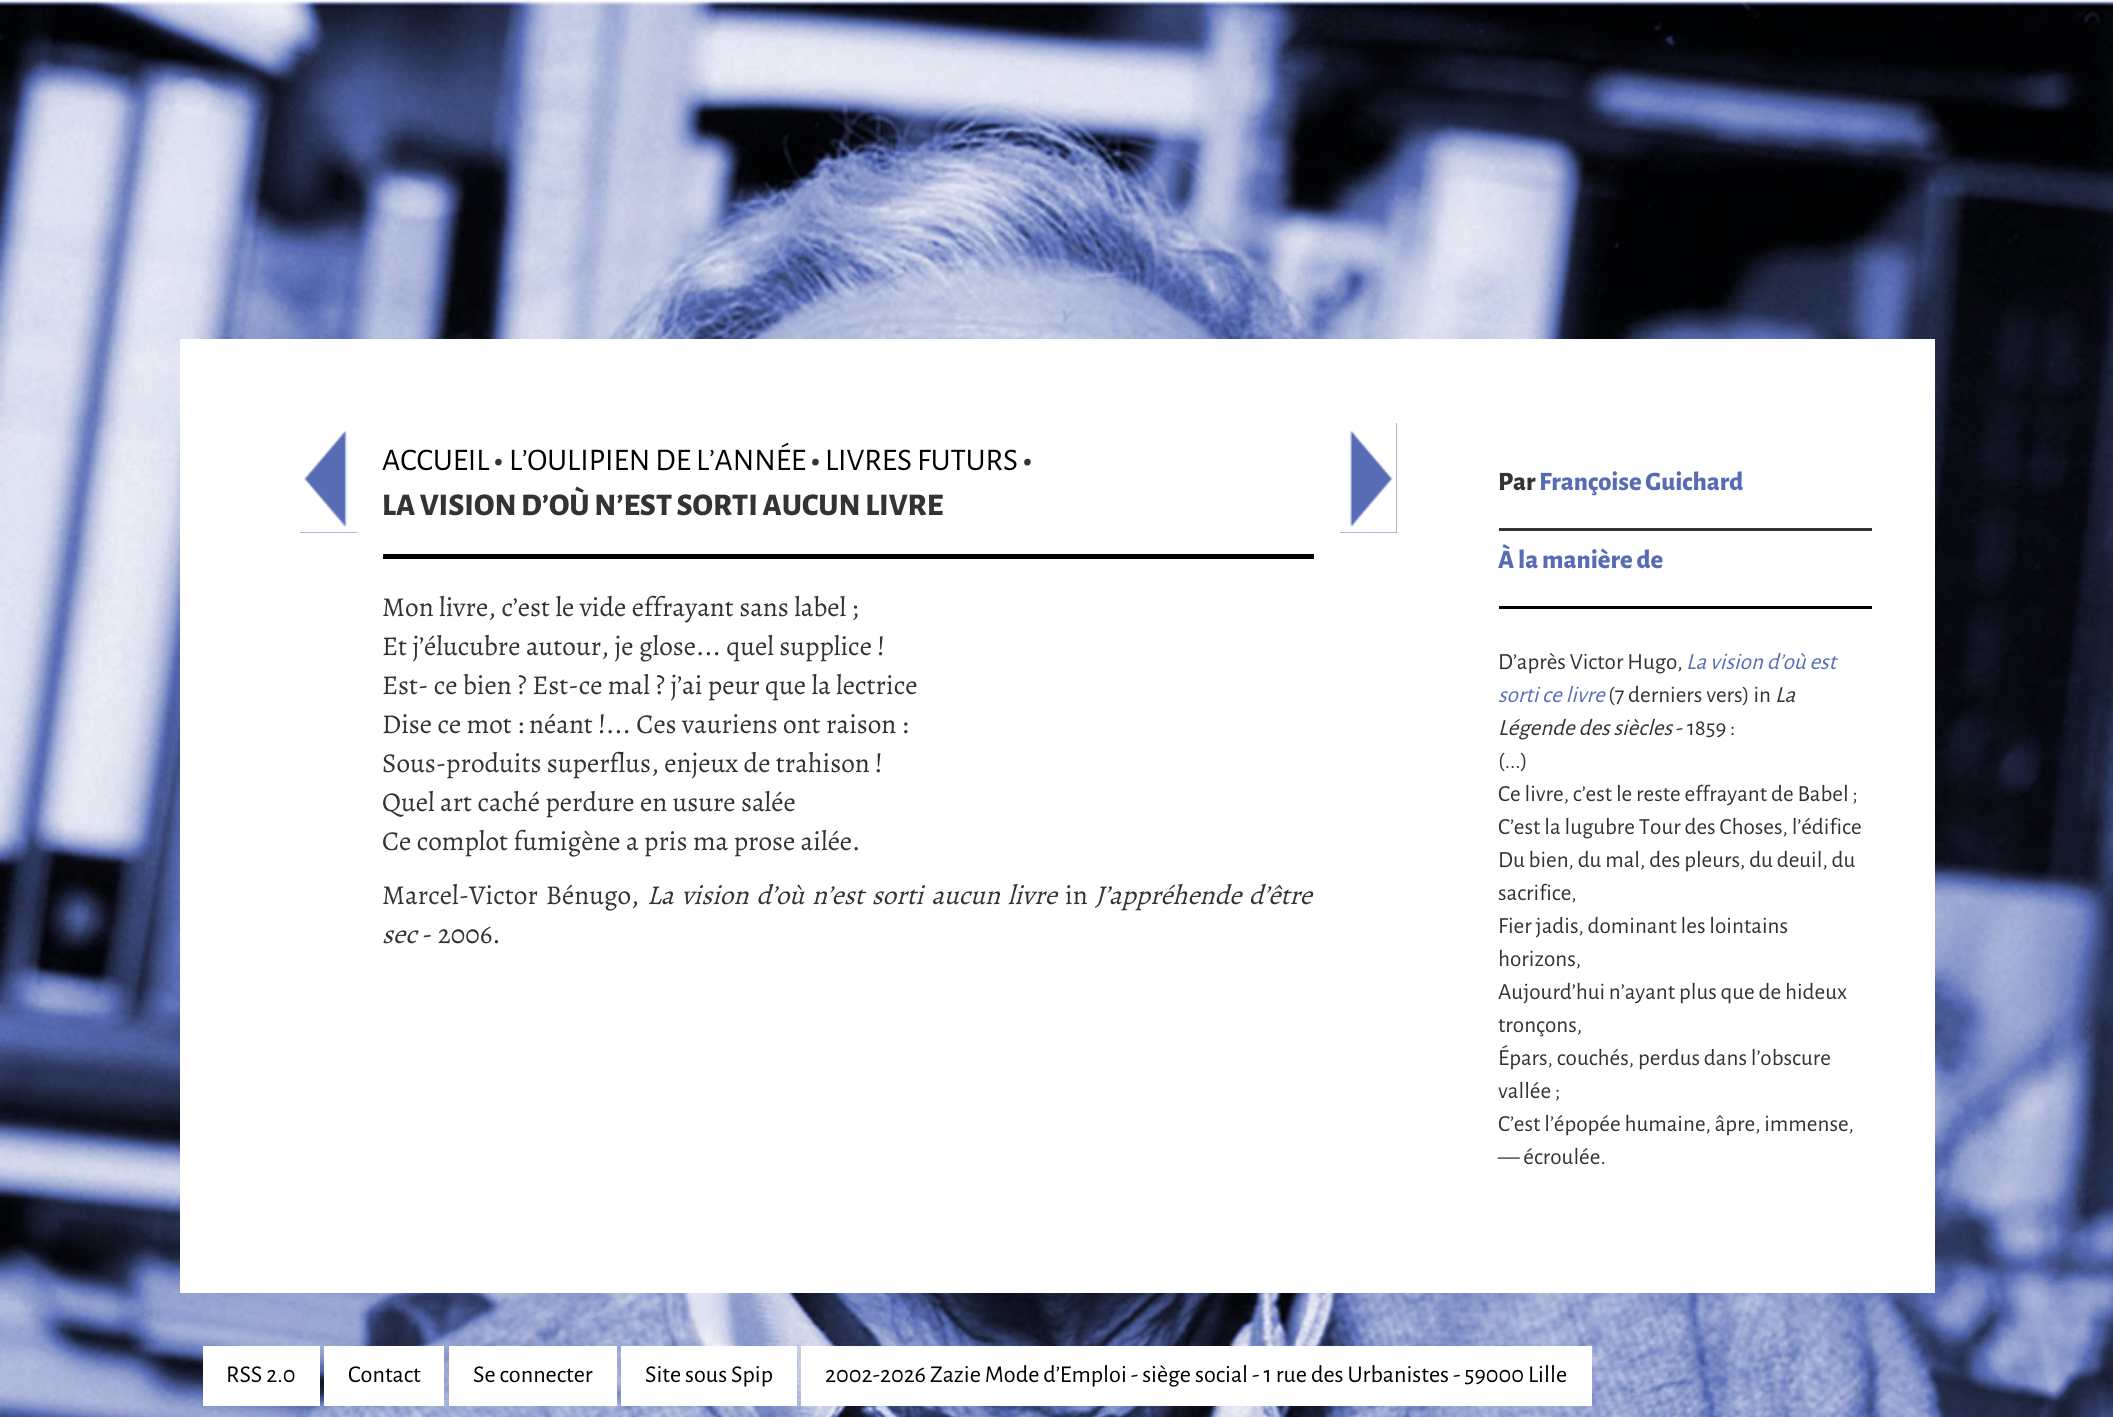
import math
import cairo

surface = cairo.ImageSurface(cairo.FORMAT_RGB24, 2113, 1417)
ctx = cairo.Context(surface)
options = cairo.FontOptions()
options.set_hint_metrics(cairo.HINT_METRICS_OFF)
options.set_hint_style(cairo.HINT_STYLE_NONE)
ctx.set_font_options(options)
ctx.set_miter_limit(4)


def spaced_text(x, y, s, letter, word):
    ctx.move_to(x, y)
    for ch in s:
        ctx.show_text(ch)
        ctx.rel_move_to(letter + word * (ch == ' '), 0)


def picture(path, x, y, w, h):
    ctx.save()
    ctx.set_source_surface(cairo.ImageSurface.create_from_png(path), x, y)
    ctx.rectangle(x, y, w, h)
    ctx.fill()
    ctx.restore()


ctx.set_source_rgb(1, 1, 1)
ctx.paint()
picture("img1.png", 0, 0, 2113, 1417)
ctx.set_source_rgb(1, 1, 1)
ctx.rectangle(180, 339, 1755, 954)
ctx.fill()
ctx.set_source_rgb(0.345, 0.424, 0.71)
ctx.rectangle(300, 430, 57, 103)
ctx.fill()
picture("img2.png", 300, 423, 57, 110)
ctx.rectangle(1340, 423, 57, 110)
ctx.fill()
picture("img3.png", 1340, 423, 57, 110)
ctx.set_source_rgb(0, 0, 0)
ctx.rectangle(383, 554, 931, 5)
ctx.fill()
ctx.select_font_face("Alegreya Sans")
ctx.set_font_size(31.5)
ctx.move_to(382, 470)
ctx.show_text("ACCUEIL")
ctx.select_font_face("Alegreya Sans ExtraBold")
ctx.set_source_rgb(0.2, 0.2, 0.2)
ctx.move_to(494, 470)
ctx.show_text("•")
ctx.select_font_face("Alegreya Sans")
ctx.set_source_rgb(0, 0, 0)
ctx.move_to(509, 470)
ctx.show_text("L’OULIPIEN DE L’ANNÉE")
ctx.select_font_face("Alegreya Sans ExtraBold")
ctx.set_source_rgb(0.2, 0.2, 0.2)
ctx.move_to(811, 470)
ctx.show_text("•")
ctx.select_font_face("Alegreya Sans")
ctx.set_source_rgb(0, 0, 0)
ctx.move_to(825, 470)
ctx.show_text("LIVRES FUTURS")
ctx.select_font_face("Alegreya Sans ExtraBold")
ctx.set_source_rgb(0.2, 0.2, 0.2)
ctx.move_to(1023, 470)
ctx.show_text("•")
ctx.move_to(382, 515)
ctx.show_text("LA VISION D’OÙ N’EST SORTI AUCUN LIVRE")
ctx.select_font_face("Alegreya")
ctx.set_font_size(27.25)
ctx.move_to(382, 616)
ctx.show_text("Mon livre, c’est le vide effrayant sans label ;")
ctx.move_to(382, 655)
ctx.show_text("Et j’élucubre autour, je glose... quel supplice !")
ctx.move_to(382, 694)
ctx.show_text("Est- ce bien ? Est-ce mal ? j’ai peur que la lectrice")
ctx.move_to(382, 733)
ctx.show_text("Dise ce mot : néant !... Ces vauriens ont raison :")
ctx.move_to(382, 772)
ctx.show_text("Sous-produits superflus, enjeux de trahison !")
ctx.move_to(382, 811)
ctx.show_text("Quel art caché perdure en usure salée")
ctx.move_to(382, 850)
ctx.show_text("Ce complot fumigène a pris ma prose ailée.")
spaced_text(382, 904, "Marcel-Victor Bénugo,", 0, 2.5)
ctx.select_font_face("Alegreya", cairo.FONT_SLANT_ITALIC)
spaced_text(647, 904, "La vision d’où n’est sorti aucun livre", 0, 2.5)
ctx.select_font_face("Alegreya")
ctx.move_to(1065, 904)
ctx.show_text("in")
ctx.select_font_face("Alegreya", cairo.FONT_SLANT_ITALIC)
spaced_text(1095, 904, "J’appréhende d’être", 0, 2)
ctx.move_to(382, 943)
ctx.show_text("sec")
ctx.select_font_face("Alegreya")
ctx.move_to(422, 943)
ctx.show_text("- 2006.")
ctx.select_font_face("Alegreya Sans ExtraBold")
ctx.set_font_size(26.5)
ctx.move_to(1498, 490)
ctx.show_text("Par")
ctx.set_source_rgb(0.345, 0.424, 0.71)
ctx.move_to(1539, 490)
ctx.show_text("Françoise Guichard")
ctx.set_source_rgb(0.2, 0.2, 0.2)
ctx.rectangle(1499, 528, 373, 3)
ctx.fill()
ctx.set_source_rgb(0.345, 0.424, 0.71)
ctx.move_to(1498, 568)
ctx.show_text("À la manière de")
ctx.set_source_rgb(0, 0, 0)
ctx.rectangle(1499, 606, 373, 3)
ctx.fill()
ctx.select_font_face("Alegreya Sans")
ctx.set_font_size(23.1)
ctx.set_source_rgb(0.2, 0.2, 0.2)
ctx.move_to(1498, 669)
ctx.show_text("D’après Victor Hugo,")
ctx.select_font_face("Alegreya Sans", cairo.FONT_SLANT_ITALIC)
ctx.set_source_rgb(0.345, 0.424, 0.71)
ctx.move_to(1686, 669)
ctx.show_text("La vision d’où est")
ctx.move_to(1498, 702)
ctx.show_text("sorti ce livre")
ctx.select_font_face("Alegreya Sans")
ctx.set_source_rgb(0.2, 0.2, 0.2)
ctx.move_to(1608, 702)
ctx.show_text("(7 derniers vers) in")
ctx.select_font_face("Alegreya Sans", cairo.FONT_SLANT_ITALIC)
ctx.move_to(1775, 702)
ctx.show_text("La")
ctx.move_to(1498, 735)
ctx.show_text("Légende des siècles")
ctx.select_font_face("Alegreya Sans")
ctx.move_to(1676, 735)
ctx.show_text("- 1859 :")
ctx.move_to(1498, 768)
ctx.show_text("(...)")
ctx.move_to(1498, 801)
ctx.show_text("Ce livre, c’est le reste effrayant de Babel ;")
ctx.move_to(1498, 834)
ctx.show_text("C’est la lugubre Tour des Choses, l’édifice")
ctx.move_to(1498, 867)
ctx.show_text("Du bien, du mal, des pleurs, du deuil, du")
ctx.move_to(1498, 900)
ctx.show_text("sacrifice,")
ctx.move_to(1498, 933)
ctx.show_text("Fier jadis, dominant les lointains")
ctx.move_to(1498, 966)
ctx.show_text("horizons,")
ctx.move_to(1498, 999)
ctx.show_text("Aujourd’hui n’ayant plus que de hideux")
ctx.move_to(1498, 1032)
ctx.show_text("tronçons,")
ctx.move_to(1498, 1065)
ctx.show_text("Épars, couchés, perdus dans l’obscure")
ctx.move_to(1498, 1098)
ctx.show_text("vallée ;")
ctx.move_to(1498, 1131)
ctx.show_text("C’est l’épopée humaine, âpre, immense,")
ctx.move_to(1498, 1164)
ctx.show_text("— écroulée.")
ctx.set_source_rgb(1, 1, 1)
ctx.rectangle(203, 1346, 117, 60)
ctx.fill()
ctx.set_font_size(24.15)
ctx.set_source_rgb(0, 0, 0)
ctx.move_to(226, 1382)
ctx.show_text("RSS 2.0")
ctx.set_source_rgb(1, 1, 1)
ctx.rectangle(324, 1346, 120, 60)
ctx.fill()
ctx.set_source_rgb(0, 0, 0)
ctx.move_to(348, 1382)
ctx.show_text("Contact")
ctx.set_source_rgb(1, 1, 1)
ctx.rectangle(449, 1346, 168, 60)
ctx.fill()
ctx.set_source_rgb(0, 0, 0)
ctx.move_to(473, 1382)
ctx.show_text("Se connecter")
ctx.set_source_rgb(1, 1, 1)
ctx.rectangle(621, 1346, 176, 60)
ctx.fill()
ctx.set_source_rgb(0, 0, 0)
ctx.move_to(645, 1382)
ctx.show_text("Site sous Spip")
ctx.set_source_rgb(1, 1, 1)
ctx.rectangle(801, 1346, 791, 60)
ctx.fill()
ctx.set_source_rgb(0, 0, 0)
ctx.move_to(825, 1382)
ctx.show_text("2002-2026 Zazie Mode d’Emploi - siège social - 1 rue des Urbanistes - 59000 Lille")
surface.write_to_png("page.png")
